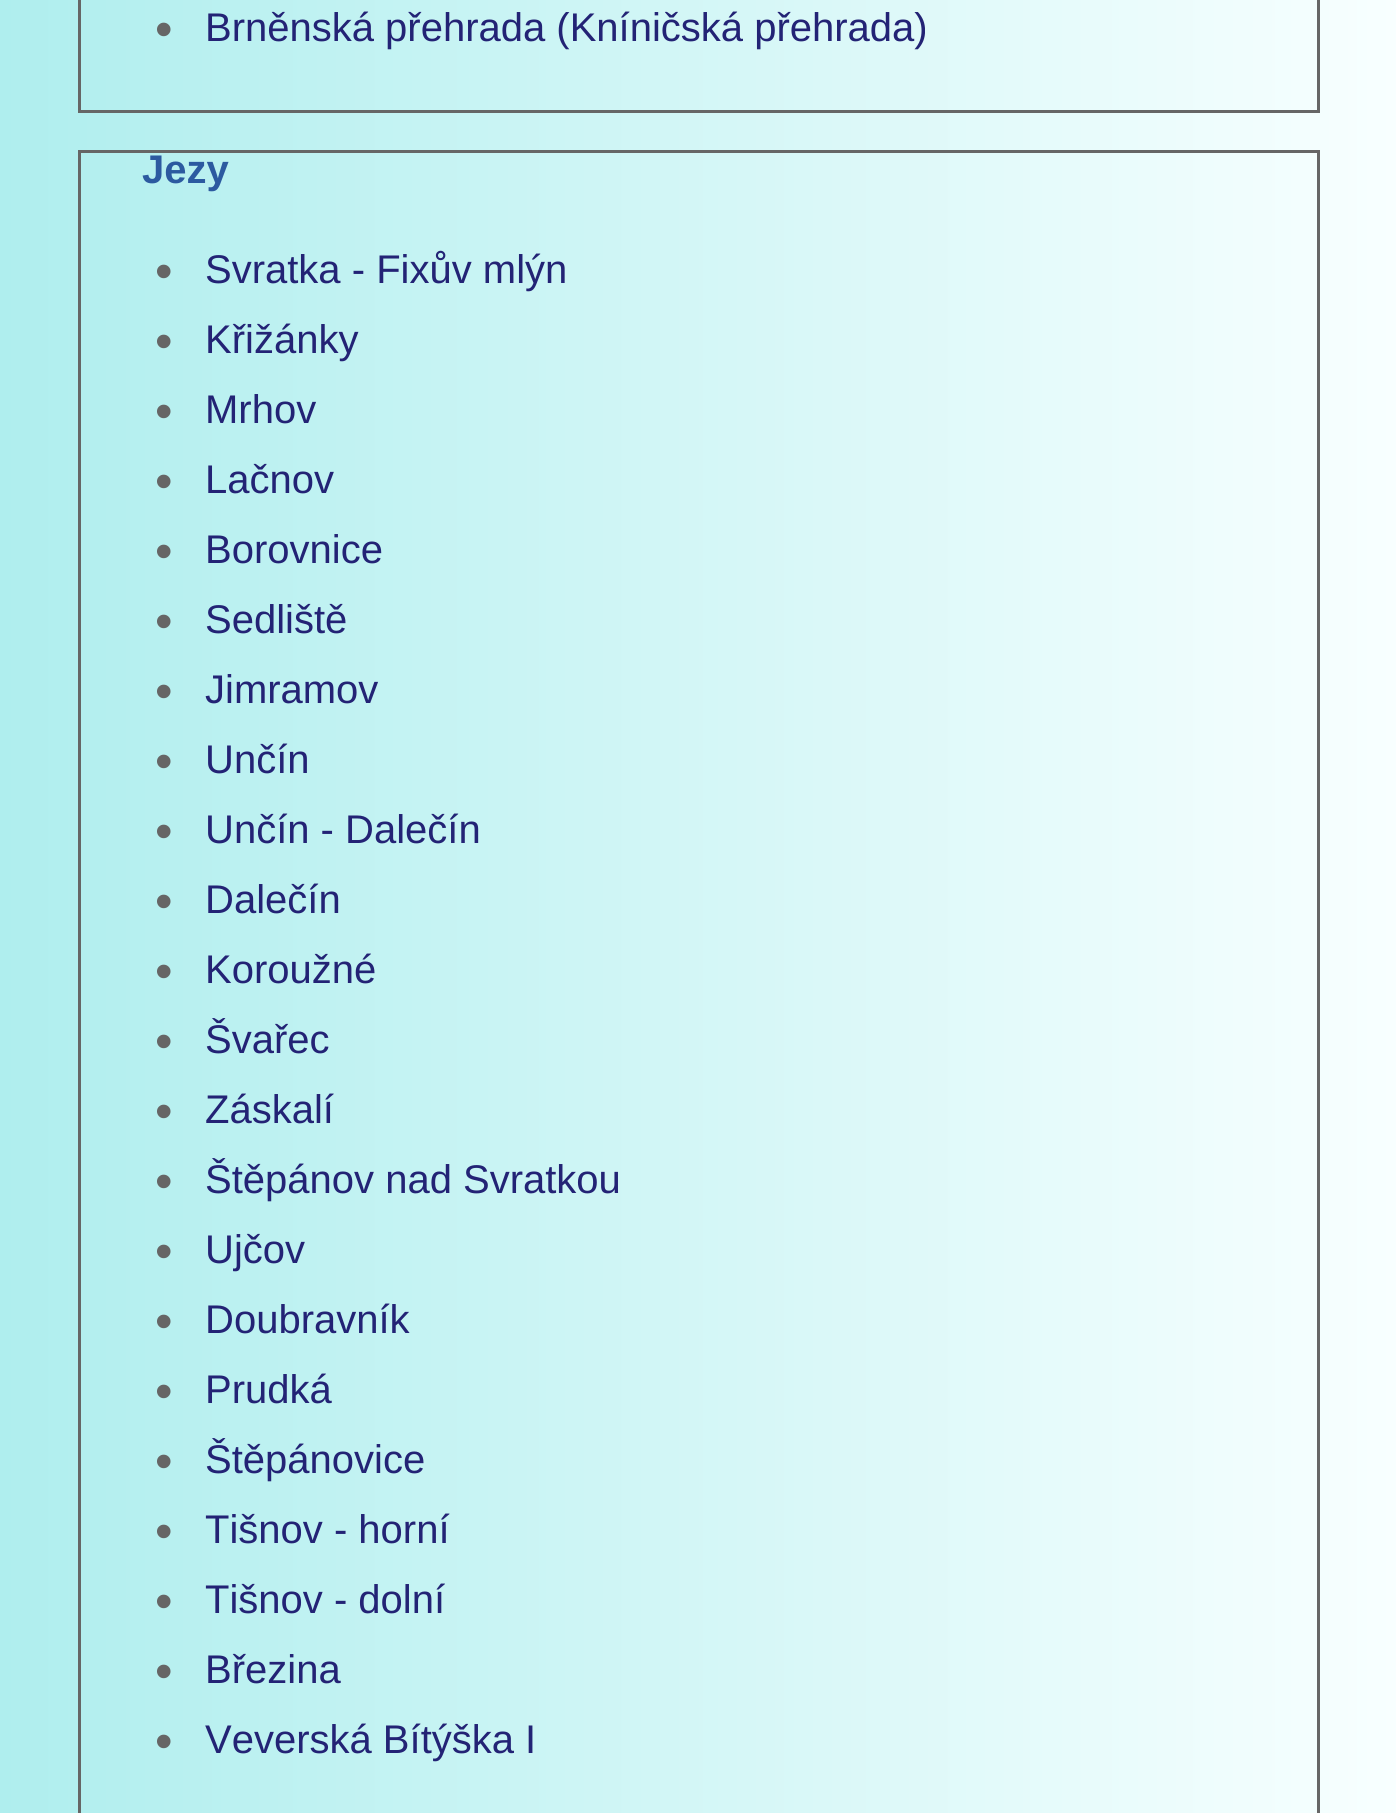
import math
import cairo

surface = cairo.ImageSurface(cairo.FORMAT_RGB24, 1396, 1813)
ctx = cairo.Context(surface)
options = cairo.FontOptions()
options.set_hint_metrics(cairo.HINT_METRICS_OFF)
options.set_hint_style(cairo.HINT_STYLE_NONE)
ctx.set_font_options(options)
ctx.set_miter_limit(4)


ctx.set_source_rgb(1, 1, 1)
ctx.paint()
gradient = cairo.LinearGradient(0, 731, 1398, 731)
gradient.add_color_stop_rgba(0, 0.686, 0.933, 0.933, 1)
gradient.add_color_stop_rgba(1, 0.973, 1, 1, 1)
ctx.set_source(gradient)
ctx.rectangle(0, 0, 1396, 1813)
ctx.fill()
ctx.rectangle(79.5, -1.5, 1239, 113)
ctx.set_source_rgb(0.4, 0.4, 0.4)
ctx.set_line_width(3)
ctx.stroke()
ctx.select_font_face("Liberation Sans")
ctx.set_font_size(50)
ctx.move_to(155, 46)
ctx.show_text("•")
ctx.set_font_size(40)
ctx.set_source_rgb(0.137, 0.137, 0.459)
ctx.move_to(205, 41)
ctx.show_text("Brněnská přehrada (Kníničská přehrada)")
ctx.rectangle(79.5, 151.5, 1239, 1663)
ctx.set_source_rgb(0.4, 0.4, 0.4)
ctx.stroke()
ctx.select_font_face("Liberation Sans", cairo.FONT_SLANT_NORMAL, cairo.FONT_WEIGHT_BOLD)
ctx.set_source_rgb(0.173, 0.353, 0.627)
ctx.move_to(142, 183)
ctx.show_text("Jezy")
ctx.select_font_face("Liberation Sans")
ctx.set_font_size(50)
ctx.set_source_rgb(0.4, 0.4, 0.4)
ctx.move_to(155, 288)
ctx.show_text("•")
ctx.set_font_size(40)
ctx.set_source_rgb(0.137, 0.137, 0.459)
ctx.move_to(205, 283)
ctx.show_text("Svratka - Fixův mlýn")
ctx.set_font_size(50)
ctx.set_source_rgb(0.4, 0.4, 0.4)
ctx.move_to(155, 358)
ctx.show_text("•")
ctx.set_font_size(40)
ctx.set_source_rgb(0.137, 0.137, 0.459)
ctx.move_to(205, 353)
ctx.show_text("Křižánky")
ctx.set_font_size(50)
ctx.set_source_rgb(0.4, 0.4, 0.4)
ctx.move_to(155, 428)
ctx.show_text("•")
ctx.set_font_size(40)
ctx.set_source_rgb(0.137, 0.137, 0.459)
ctx.move_to(205, 423)
ctx.show_text("Mrhov")
ctx.set_font_size(50)
ctx.set_source_rgb(0.4, 0.4, 0.4)
ctx.move_to(155, 498)
ctx.show_text("•")
ctx.set_font_size(40)
ctx.set_source_rgb(0.137, 0.137, 0.459)
ctx.move_to(205, 493)
ctx.show_text("Lačnov")
ctx.set_font_size(50)
ctx.set_source_rgb(0.4, 0.4, 0.4)
ctx.move_to(155, 568)
ctx.show_text("•")
ctx.set_font_size(40)
ctx.set_source_rgb(0.137, 0.137, 0.459)
ctx.move_to(205, 563)
ctx.show_text("Borovnice")
ctx.set_font_size(50)
ctx.set_source_rgb(0.4, 0.4, 0.4)
ctx.move_to(155, 638)
ctx.show_text("•")
ctx.set_font_size(40)
ctx.set_source_rgb(0.137, 0.137, 0.459)
ctx.move_to(205, 633)
ctx.show_text("Sedliště")
ctx.set_font_size(50)
ctx.set_source_rgb(0.4, 0.4, 0.4)
ctx.move_to(155, 708)
ctx.show_text("•")
ctx.set_font_size(40)
ctx.set_source_rgb(0.137, 0.137, 0.459)
ctx.move_to(205, 703)
ctx.show_text("Jimramov")
ctx.set_font_size(50)
ctx.set_source_rgb(0.4, 0.4, 0.4)
ctx.move_to(155, 778)
ctx.show_text("•")
ctx.set_font_size(40)
ctx.set_source_rgb(0.137, 0.137, 0.459)
ctx.move_to(205, 773)
ctx.show_text("Unčín")
ctx.set_font_size(50)
ctx.set_source_rgb(0.4, 0.4, 0.4)
ctx.move_to(155, 848)
ctx.show_text("•")
ctx.set_font_size(40)
ctx.set_source_rgb(0.137, 0.137, 0.459)
ctx.move_to(205, 843)
ctx.show_text("Unčín - Dalečín")
ctx.set_font_size(50)
ctx.set_source_rgb(0.4, 0.4, 0.4)
ctx.move_to(155, 918)
ctx.show_text("•")
ctx.set_font_size(40)
ctx.set_source_rgb(0.137, 0.137, 0.459)
ctx.move_to(205, 913)
ctx.show_text("Dalečín")
ctx.set_font_size(50)
ctx.set_source_rgb(0.4, 0.4, 0.4)
ctx.move_to(155, 988)
ctx.show_text("•")
ctx.set_font_size(40)
ctx.set_source_rgb(0.137, 0.137, 0.459)
ctx.move_to(205, 983)
ctx.show_text("Koroužné")
ctx.set_font_size(50)
ctx.set_source_rgb(0.4, 0.4, 0.4)
ctx.move_to(155, 1058)
ctx.show_text("•")
ctx.set_font_size(40)
ctx.set_source_rgb(0.137, 0.137, 0.459)
ctx.move_to(205, 1053)
ctx.show_text("Švařec")
ctx.set_font_size(50)
ctx.set_source_rgb(0.4, 0.4, 0.4)
ctx.move_to(155, 1128)
ctx.show_text("•")
ctx.set_font_size(40)
ctx.set_source_rgb(0.137, 0.137, 0.459)
ctx.move_to(205, 1123)
ctx.show_text("Záskalí")
ctx.set_font_size(50)
ctx.set_source_rgb(0.4, 0.4, 0.4)
ctx.move_to(155, 1198)
ctx.show_text("•")
ctx.set_font_size(40)
ctx.set_source_rgb(0.137, 0.137, 0.459)
ctx.move_to(205, 1193)
ctx.show_text("Štěpánov nad Svratkou")
ctx.set_font_size(50)
ctx.set_source_rgb(0.4, 0.4, 0.4)
ctx.move_to(155, 1268)
ctx.show_text("•")
ctx.set_font_size(40)
ctx.set_source_rgb(0.137, 0.137, 0.459)
ctx.move_to(205, 1263)
ctx.show_text("Ujčov")
ctx.set_font_size(50)
ctx.set_source_rgb(0.4, 0.4, 0.4)
ctx.move_to(155, 1338)
ctx.show_text("•")
ctx.set_font_size(40)
ctx.set_source_rgb(0.137, 0.137, 0.459)
ctx.move_to(205, 1333)
ctx.show_text("Doubravník")
ctx.set_font_size(50)
ctx.set_source_rgb(0.4, 0.4, 0.4)
ctx.move_to(155, 1408)
ctx.show_text("•")
ctx.set_font_size(40)
ctx.set_source_rgb(0.137, 0.137, 0.459)
ctx.move_to(205, 1403)
ctx.show_text("Prudká")
ctx.set_font_size(50)
ctx.set_source_rgb(0.4, 0.4, 0.4)
ctx.move_to(155, 1478)
ctx.show_text("•")
ctx.set_font_size(40)
ctx.set_source_rgb(0.137, 0.137, 0.459)
ctx.move_to(205, 1473)
ctx.show_text("Štěpánovice")
ctx.set_font_size(50)
ctx.set_source_rgb(0.4, 0.4, 0.4)
ctx.move_to(155, 1548)
ctx.show_text("•")
ctx.set_font_size(40)
ctx.set_source_rgb(0.137, 0.137, 0.459)
ctx.move_to(205, 1543)
ctx.show_text("Tišnov - horní")
ctx.set_font_size(50)
ctx.set_source_rgb(0.4, 0.4, 0.4)
ctx.move_to(155, 1618)
ctx.show_text("•")
ctx.set_font_size(40)
ctx.set_source_rgb(0.137, 0.137, 0.459)
ctx.move_to(205, 1613)
ctx.show_text("Tišnov - dolní")
ctx.set_font_size(50)
ctx.set_source_rgb(0.4, 0.4, 0.4)
ctx.move_to(155, 1688)
ctx.show_text("•")
ctx.set_font_size(40)
ctx.set_source_rgb(0.137, 0.137, 0.459)
ctx.move_to(205, 1683)
ctx.show_text("Březina")
ctx.set_font_size(50)
ctx.set_source_rgb(0.4, 0.4, 0.4)
ctx.move_to(155, 1758)
ctx.show_text("•")
ctx.set_font_size(40)
ctx.set_source_rgb(0.137, 0.137, 0.459)
ctx.move_to(205, 1753)
ctx.show_text("Veverská Bítýška I")
surface.write_to_png("page.png")
